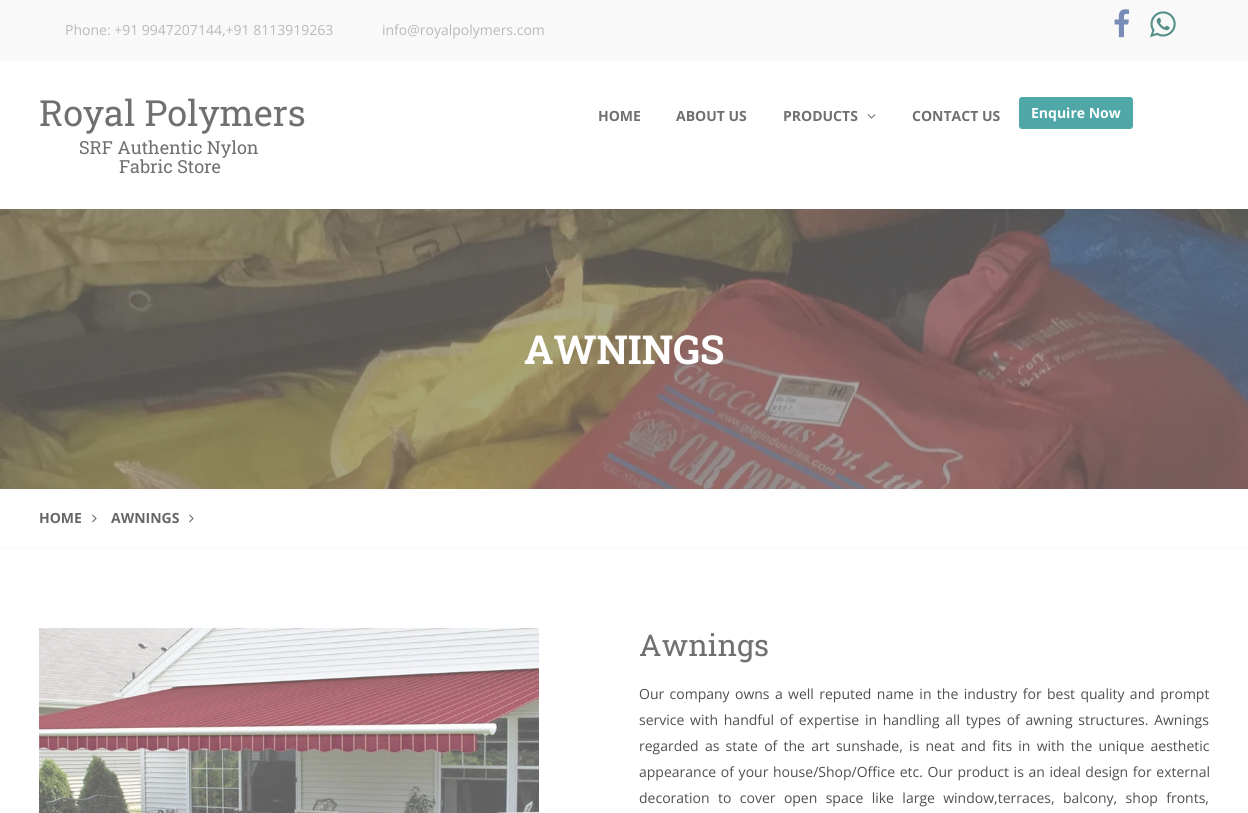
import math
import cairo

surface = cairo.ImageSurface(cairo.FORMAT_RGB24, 1248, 813)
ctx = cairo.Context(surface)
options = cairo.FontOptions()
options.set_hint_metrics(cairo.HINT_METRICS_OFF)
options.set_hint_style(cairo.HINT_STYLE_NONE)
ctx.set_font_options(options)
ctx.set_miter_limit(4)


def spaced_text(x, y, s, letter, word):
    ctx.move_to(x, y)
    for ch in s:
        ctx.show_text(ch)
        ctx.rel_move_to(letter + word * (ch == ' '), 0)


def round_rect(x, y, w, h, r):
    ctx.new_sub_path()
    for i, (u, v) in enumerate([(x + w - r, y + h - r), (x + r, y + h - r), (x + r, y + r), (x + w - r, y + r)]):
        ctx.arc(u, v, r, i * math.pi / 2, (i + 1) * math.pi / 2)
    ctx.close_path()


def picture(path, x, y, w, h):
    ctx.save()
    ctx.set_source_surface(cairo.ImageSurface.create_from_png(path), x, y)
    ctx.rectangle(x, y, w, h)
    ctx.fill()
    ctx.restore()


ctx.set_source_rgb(1, 1, 1)
ctx.paint()
ctx.set_source_rgb(0.976, 0.976, 0.976)
ctx.rectangle(0, 0, 1248, 61)
ctx.fill()
ctx.select_font_face("Open Sans")
ctx.set_font_size(14)
ctx.set_source_rgb(0.725, 0.725, 0.725)
ctx.move_to(65, 35)
ctx.show_text("Phone: +91 9947207144,+91 8113919263")
ctx.move_to(382, 35)
ctx.show_text("info@royalpolymers.com")
picture("img1.png", 1114, 9, 16, 29)
picture("img2.png", 1150, 11, 26, 27)
ctx.select_font_face("Roboto Slab")
ctx.set_font_size(36)
ctx.set_source_rgb(0.439, 0.439, 0.439)
ctx.move_to(39, 126)
ctx.show_text("Royal Polymers")
ctx.set_font_size(18)
ctx.move_to(79, 154)
ctx.show_text("SRF Authentic Nylon")
ctx.move_to(119, 173)
ctx.show_text("Fabric Store")
ctx.select_font_face("Open Sans", cairo.FONT_SLANT_NORMAL, cairo.FONT_WEIGHT_BOLD)
ctx.set_font_size(14)
ctx.move_to(598, 121)
ctx.show_text("HOME")
ctx.move_to(676, 121)
ctx.show_text("ABOUT US")
ctx.move_to(783, 121)
ctx.show_text("PRODUCTS")
picture("img3.png", 867, 114, 9, 5)
ctx.move_to(912, 121)
ctx.show_text("CONTACT US")
ctx.set_source_rgb(0.31, 0.655, 0.655)
round_rect(1018.5, 96.5, 115, 33, 3.5)
ctx.fill_preserve()
ctx.set_source_rgb(1, 1, 1)
ctx.set_line_width(1)
ctx.stroke()
ctx.move_to(1031, 118)
ctx.show_text("Enquire Now")
picture("img4.png", 0, 209, 1248, 280)
ctx.select_font_face("Roboto Slab", cairo.FONT_SLANT_NORMAL, cairo.FONT_WEIGHT_BOLD)
ctx.set_font_size(40)
ctx.move_to(524, 364)
ctx.show_text("AWNINGS")
ctx.set_source_rgb(0.969, 0.969, 0.969)
ctx.rectangle(0, 547, 1248, 1)
ctx.fill()
ctx.select_font_face("Open Sans", cairo.FONT_SLANT_NORMAL, cairo.FONT_WEIGHT_BOLD)
ctx.set_font_size(14)
ctx.set_source_rgb(0.404, 0.404, 0.404)
ctx.move_to(39, 523)
ctx.show_text("HOME")
picture("img5.png", 92, 514, 5, 9)
ctx.move_to(111, 523)
ctx.show_text("AWNINGS")
picture("img5.png", 189, 514, 5, 9)
picture("img6.png", 39, 628, 500, 185)
ctx.select_font_face("Roboto Slab")
ctx.set_font_size(30)
ctx.set_source_rgb(0.439, 0.439, 0.439)
ctx.move_to(639, 656)
ctx.show_text("Awnings")
ctx.select_font_face("Open Sans")
ctx.set_font_size(14)
ctx.set_source_rgb(0.31, 0.31, 0.31)
spaced_text(639, 699, "Our company owns a well reputed name in the industry for best quality and prompt", 0, 1.75)
spaced_text(639, 725, "service with handful of expertise in handling all types of awning structures. Awnings", 0, 2.1)
spaced_text(639, 751, "regarded as state of the art sunshade, is neat and fits in with the unique aesthetic", 0, 2.6)
spaced_text(639, 777, "appearance of your house/Shop/Office etc. Our product is an ideal design for external", 0, 1)
spaced_text(639, 803, "decoration to cover open space like large window,terraces, balcony, shop fronts,", 0, 4.75)
surface.write_to_png("page.png")
